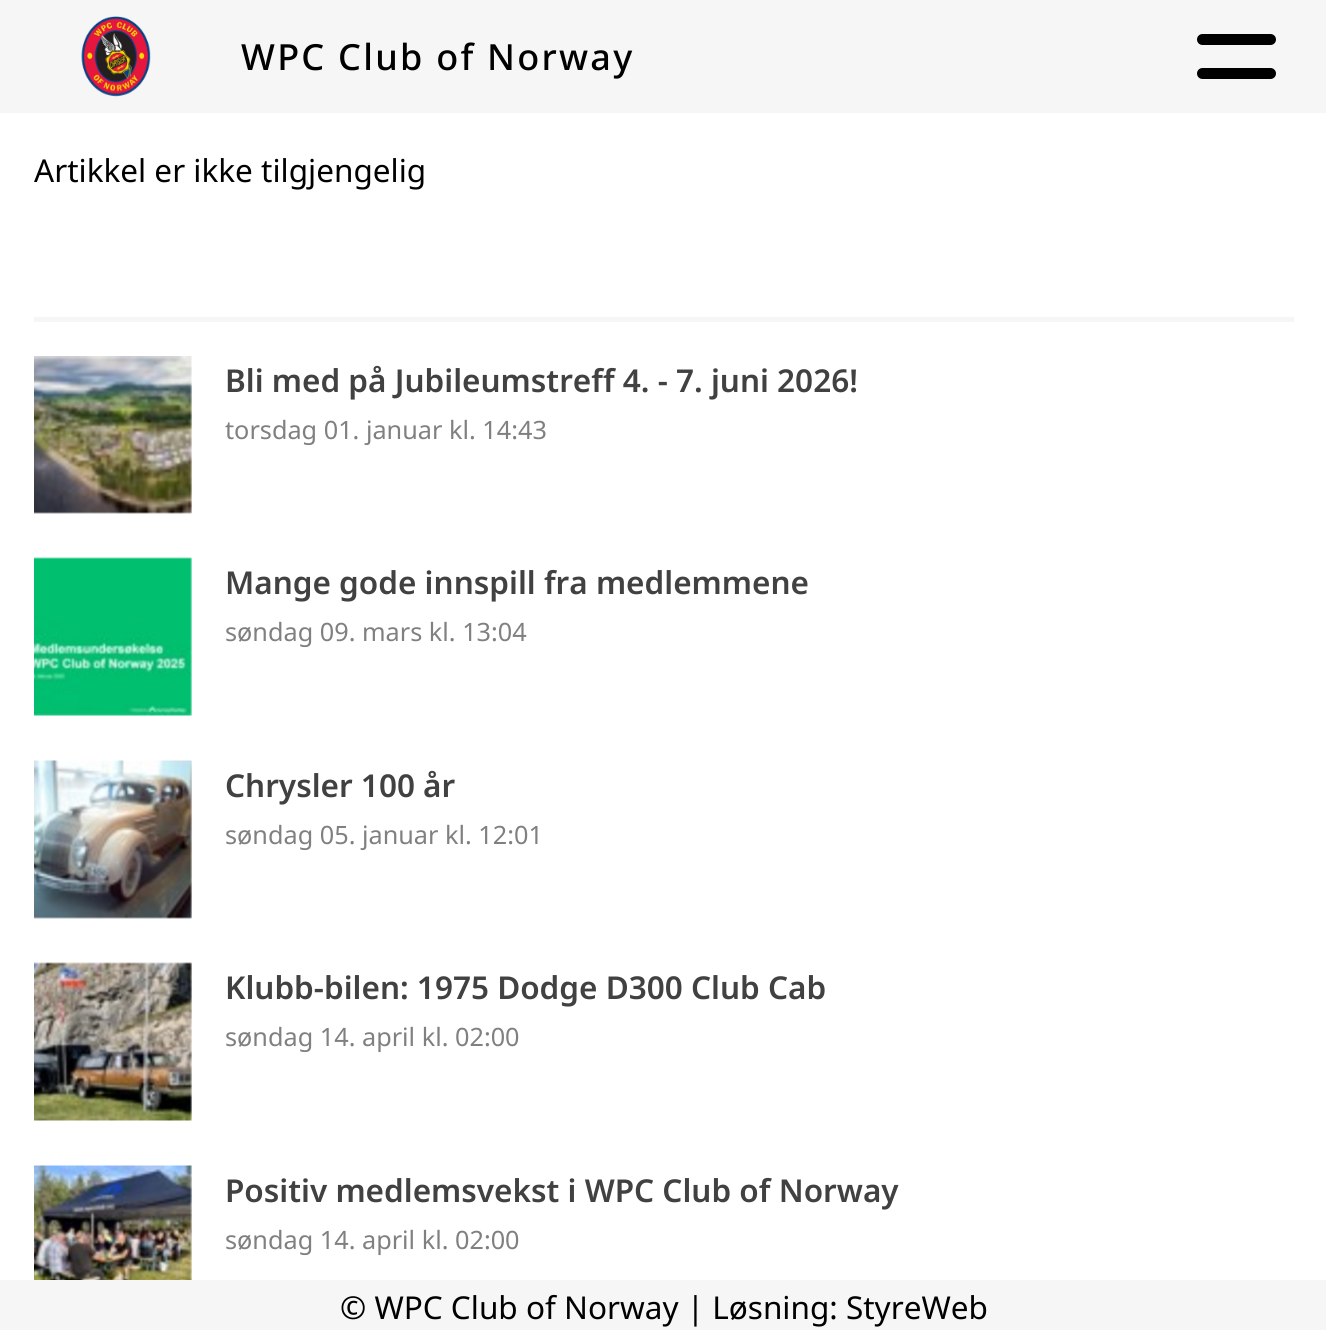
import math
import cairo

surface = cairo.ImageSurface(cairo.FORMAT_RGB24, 1326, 1330)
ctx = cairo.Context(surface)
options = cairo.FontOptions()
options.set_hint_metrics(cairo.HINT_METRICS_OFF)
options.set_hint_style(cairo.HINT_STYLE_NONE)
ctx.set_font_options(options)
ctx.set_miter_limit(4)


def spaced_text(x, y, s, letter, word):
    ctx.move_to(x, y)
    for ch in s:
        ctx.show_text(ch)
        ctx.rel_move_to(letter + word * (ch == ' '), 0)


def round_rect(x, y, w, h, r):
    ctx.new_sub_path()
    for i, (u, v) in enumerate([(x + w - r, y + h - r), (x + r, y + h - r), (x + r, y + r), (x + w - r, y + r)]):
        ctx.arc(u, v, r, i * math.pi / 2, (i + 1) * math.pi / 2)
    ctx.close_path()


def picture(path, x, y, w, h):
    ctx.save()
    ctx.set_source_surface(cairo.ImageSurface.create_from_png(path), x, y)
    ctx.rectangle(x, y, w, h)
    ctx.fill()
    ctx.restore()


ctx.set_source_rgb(1, 1, 1)
ctx.paint()
ctx.set_source_rgb(0.961, 0.961, 0.961)
ctx.rectangle(0, 0, 1326, 113)
ctx.fill()
picture("img1.png", 81, 16, 70, 81)
ctx.select_font_face("Noto Sans Medium")
ctx.set_font_size(36)
ctx.set_source_rgb(0, 0, 0)
spaced_text(241, 70, "WPC Club of Norway", 2.25, 0)
round_rect(1197, 34, 79, 11, 5.5)
ctx.fill()
round_rect(1197, 68, 79, 11, 5.5)
ctx.fill()
ctx.select_font_face("Noto Sans")
ctx.set_font_size(31.5)
ctx.move_to(34, 182)
ctx.show_text("Artikkel er ikke tilgjengelig")
ctx.set_source_rgb(0.961, 0.961, 0.961)
ctx.rectangle(34, 317, 1260, 5)
ctx.fill()
picture("img2.png", 34, 356, 158, 158)
ctx.select_font_face("Noto Sans SemiBold")
ctx.set_source_rgb(0.255, 0.255, 0.255)
ctx.move_to(225, 392)
ctx.show_text("Bli med på Jubileumstreff 4. - 7. juni 2026!")
ctx.select_font_face("Noto Sans")
ctx.set_font_size(25.25)
ctx.set_source_rgb(0.502, 0.502, 0.502)
ctx.move_to(225, 439)
ctx.show_text("torsdag 01. januar kl. 14:43")
picture("img3.png", 34, 557, 158, 159)
ctx.select_font_face("Noto Sans SemiBold")
ctx.set_font_size(31.5)
ctx.set_source_rgb(0.255, 0.255, 0.255)
ctx.move_to(225, 594)
ctx.show_text("Mange gode innspill fra medlemmene")
ctx.select_font_face("Noto Sans")
ctx.set_font_size(25.25)
ctx.set_source_rgb(0.502, 0.502, 0.502)
ctx.move_to(225, 641)
ctx.show_text("søndag 09. mars kl. 13:04")
picture("img4.png", 34, 760, 158, 159)
ctx.select_font_face("Noto Sans SemiBold")
ctx.set_font_size(31.5)
ctx.set_source_rgb(0.255, 0.255, 0.255)
ctx.move_to(225, 797)
ctx.show_text("Chrysler 100 år")
ctx.select_font_face("Noto Sans")
ctx.set_font_size(25.25)
ctx.set_source_rgb(0.502, 0.502, 0.502)
ctx.move_to(225, 844)
ctx.show_text("søndag 05. januar kl. 12:01")
picture("img5.png", 34, 962, 158, 159)
ctx.select_font_face("Noto Sans SemiBold")
ctx.set_font_size(31.5)
ctx.set_source_rgb(0.255, 0.255, 0.255)
ctx.move_to(225, 999)
ctx.show_text("Klubb-bilen: 1975 Dodge D300 Club Cab")
ctx.select_font_face("Noto Sans")
ctx.set_font_size(25.25)
ctx.set_source_rgb(0.502, 0.502, 0.502)
ctx.move_to(225, 1046)
ctx.show_text("søndag 14. april kl. 02:00")
picture("img6.png", 34, 1165, 158, 115)
ctx.select_font_face("Noto Sans SemiBold")
ctx.set_font_size(31.5)
ctx.set_source_rgb(0.255, 0.255, 0.255)
ctx.move_to(225, 1202)
ctx.show_text("Positiv medlemsvekst i WPC Club of Norway")
ctx.select_font_face("Noto Sans")
ctx.set_font_size(25.25)
ctx.set_source_rgb(0.502, 0.502, 0.502)
ctx.move_to(225, 1249)
ctx.show_text("søndag 14. april kl. 02:00")
ctx.set_source_rgb(0.961, 0.961, 0.961)
ctx.rectangle(0, 1280, 1326, 50)
ctx.fill()
ctx.set_font_size(31.5)
ctx.set_source_rgb(0, 0, 0)
ctx.move_to(340, 1319)
ctx.show_text("© WPC Club of Norway | Løsning: StyreWeb")
surface.write_to_png("page.png")
